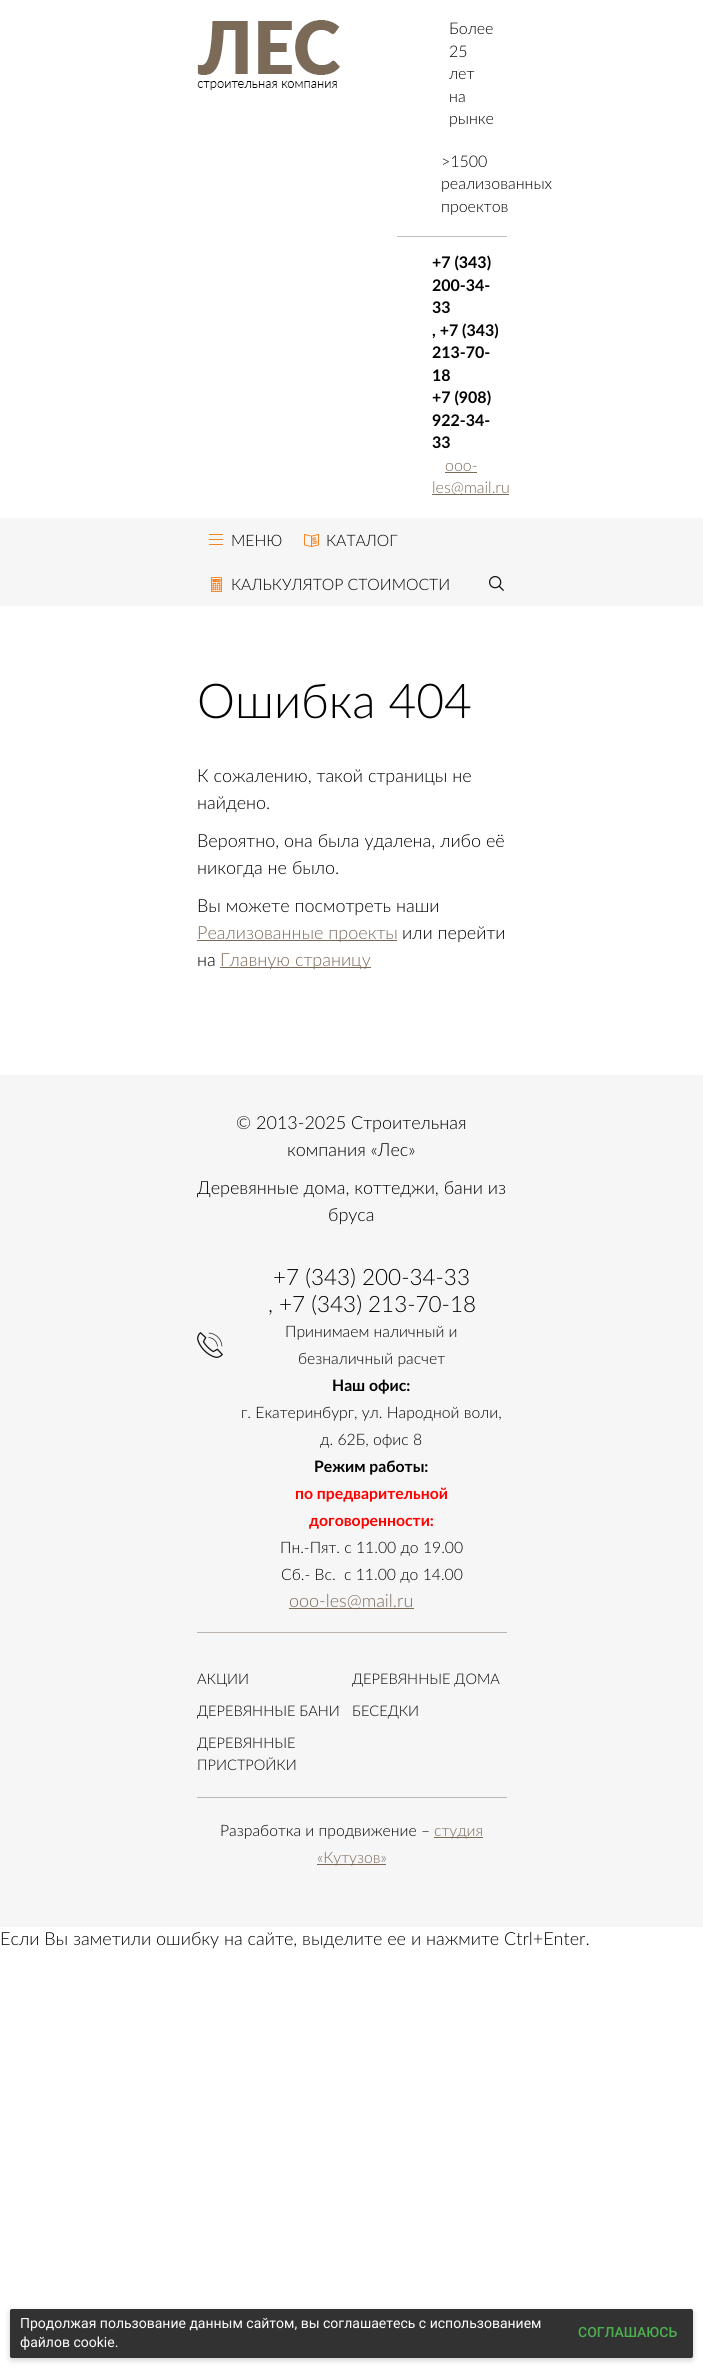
import math
import cairo

surface = cairo.ImageSurface(cairo.FORMAT_RGB24, 703, 2368)
ctx = cairo.Context(surface)
options = cairo.FontOptions()
options.set_hint_metrics(cairo.HINT_METRICS_OFF)
options.set_hint_style(cairo.HINT_STYLE_NONE)
ctx.set_font_options(options)
ctx.set_miter_limit(4)


def round_rect(x, y, w, h, r):
    ctx.new_sub_path()
    for i, (u, v) in enumerate([(x + w - r, y + h - r), (x + r, y + h - r), (x + r, y + r), (x + w - r, y + r)]):
        ctx.arc(u, v, r, i * math.pi / 2, (i + 1) * math.pi / 2)
    ctx.close_path()


def shadow(x, y, w, h, r, blur, alpha):
    ctx.push_group_with_content(cairo.CONTENT_ALPHA)
    ctx.set_operator(cairo.OPERATOR_SOURCE)
    for i in range(15, -16, -2):
        e = blur * i / 6
        if min(w, h) + 2 * e > 0:
            ctx.set_source_rgba(0, 0, 0, alpha * math.erfc((i - 1) / 8.5) / 2)
            round_rect(x - e, y - e, w + 2 * e, h + 2 * e, max(0, min(r + e + blur * .6, min(w, h) / 2 + e)))
            ctx.fill()
    ctx.mask(ctx.pop_group())


def picture(path, x, y, w, h):
    ctx.save()
    ctx.set_source_surface(cairo.ImageSurface.create_from_png(path), x, y)
    ctx.rectangle(x, y, w, h)
    ctx.fill()
    ctx.restore()


ctx.set_source_rgb(1, 1, 1)
ctx.paint()
picture("img1.png", 197, 20, 143, 70)
ctx.select_font_face("Lato Light")
ctx.set_font_size(16)
ctx.set_source_rgb(0, 0, 0)
ctx.move_to(449, 34)
ctx.show_text("Более")
ctx.move_to(449, 57)
ctx.show_text("25")
ctx.move_to(449, 79)
ctx.show_text("лет")
ctx.move_to(449, 102)
ctx.show_text("на")
ctx.move_to(449, 124)
ctx.show_text("рынке")
ctx.move_to(441, 167)
ctx.show_text(">1500")
ctx.move_to(441, 189)
ctx.show_text("реализованных")
ctx.move_to(441, 212)
ctx.show_text("проектов")
ctx.set_source_rgb(0.769, 0.741, 0.722)
ctx.rectangle(397, 236, 110, 1)
ctx.fill()
ctx.select_font_face("Lato", cairo.FONT_SLANT_NORMAL, cairo.FONT_WEIGHT_BOLD)
ctx.set_source_rgb(0, 0, 0)
ctx.move_to(432, 268)
ctx.show_text("+7 (343)")
ctx.move_to(432, 291)
ctx.show_text("200-34-")
ctx.move_to(432, 313)
ctx.show_text("33")
ctx.move_to(432, 336)
ctx.show_text(", +7 (343)")
ctx.move_to(432, 358)
ctx.show_text("213-70-")
ctx.move_to(432, 381)
ctx.show_text("18")
ctx.move_to(432, 403)
ctx.show_text("+7 (908)")
ctx.move_to(432, 426)
ctx.show_text("922-34-")
ctx.move_to(432, 448)
ctx.show_text("33")
ctx.select_font_face("Lato Light")
ctx.set_source_rgb(0.486, 0.416, 0.349)
ctx.move_to(445, 471)
ctx.show_text("ooo-")
ctx.rectangle(445, 472, 32, 1)
ctx.fill()
ctx.rectangle(432, 494, 77, 1)
ctx.fill()
ctx.move_to(432, 493)
ctx.show_text("les@mail.ru")
ctx.set_source_rgb(0.961, 0.961, 0.961)
ctx.rectangle(0, 518, 703, 88)
ctx.fill()
picture("img2.png", 209, 534, 14, 11)
ctx.set_font_size(15.75)
ctx.set_source_rgb(0, 0, 0)
ctx.move_to(231, 546)
ctx.show_text("МЕНЮ")
picture("img3.png", 304, 534, 15, 13)
ctx.move_to(326, 546)
ctx.show_text("КАТАЛОГ")
picture("img4.png", 211, 577, 11, 15)
ctx.move_to(231, 590)
ctx.show_text("КАЛЬКУЛЯТОР СТОИМОСТИ")
picture("img5.png", 489, 576, 15, 15)
ctx.set_font_size(48)
ctx.move_to(197, 718)
ctx.show_text("Ошибка 404")
ctx.set_font_size(18)
ctx.move_to(197, 782)
ctx.show_text("К сожалению, такой страницы не")
ctx.move_to(197, 809)
ctx.show_text("найдено.")
ctx.move_to(197, 847)
ctx.show_text("Вероятно, она была удалена, либо её")
ctx.move_to(197, 874)
ctx.show_text("никогда не было.")
ctx.move_to(197, 912)
ctx.show_text("Вы можете посмотреть наши")
ctx.set_source_rgb(0.486, 0.416, 0.349)
ctx.rectangle(197, 940, 200, 1)
ctx.fill()
ctx.move_to(197, 939)
ctx.show_text("Реализованные проекты")
ctx.set_source_rgb(0, 0, 0)
ctx.move_to(402, 939)
ctx.show_text("или перейти")
ctx.move_to(197, 966)
ctx.show_text("на")
ctx.set_source_rgb(0.486, 0.416, 0.349)
ctx.rectangle(220, 967, 151, 1)
ctx.fill()
ctx.move_to(220, 966)
ctx.show_text("Главную страницу")
ctx.set_source_rgb(0.961, 0.961, 0.961)
ctx.rectangle(0, 1075, 703, 852)
ctx.fill()
ctx.set_source_rgb(0, 0, 0)
ctx.move_to(236, 1129)
ctx.show_text("© 2013-2025 Строительная")
ctx.move_to(287, 1156)
ctx.show_text("компания «Лес»")
ctx.move_to(197, 1194)
ctx.show_text("Деревянные дома, коттеджи, бани из")
ctx.move_to(328, 1221)
ctx.show_text("бруса")
ctx.set_font_size(22.5)
ctx.move_to(273, 1285)
ctx.show_text("+7 (343) 200-34-33")
ctx.move_to(268, 1312)
ctx.show_text(", +7 (343) 213-70-18")
picture("img6.png", 197, 1332, 26, 26)
ctx.set_font_size(15.75)
ctx.move_to(285, 1337)
ctx.show_text("Принимаем наличный и")
ctx.move_to(298, 1364)
ctx.show_text("безналичный расчет")
ctx.select_font_face("Lato", cairo.FONT_SLANT_NORMAL, cairo.FONT_WEIGHT_BOLD)
ctx.move_to(332, 1391)
ctx.show_text("Наш офис:")
ctx.select_font_face("Lato Light")
ctx.move_to(241, 1418)
ctx.show_text("г. Екатеринбург, ул. Народной воли,")
ctx.move_to(320, 1445)
ctx.show_text("д. 62Б, офис 8")
ctx.select_font_face("Lato", cairo.FONT_SLANT_NORMAL, cairo.FONT_WEIGHT_BOLD)
ctx.move_to(314, 1472)
ctx.show_text("Режим работы:")
ctx.set_source_rgb(1, 0, 0)
ctx.move_to(295, 1499)
ctx.show_text("по предварительной")
ctx.move_to(309, 1526)
ctx.show_text("договоренности:")
ctx.select_font_face("Lato Light")
ctx.set_source_rgb(0, 0, 0)
ctx.move_to(280, 1553)
ctx.show_text("Пн.-Пят. с 11.00 до 19.00")
ctx.move_to(281, 1580)
ctx.show_text("Сб.- Вс.")
ctx.move_to(344, 1580)
ctx.show_text("с 11.00 до 14.00")
ctx.set_source_rgb(0.486, 0.416, 0.349)
ctx.rectangle(289, 1608, 125, 1)
ctx.fill()
ctx.set_font_size(18)
ctx.move_to(289, 1607)
ctx.show_text("ooo-les@mail.ru")
ctx.set_source_rgb(0.737, 0.706, 0.682)
ctx.rectangle(197, 1632, 310, 1)
ctx.fill()
ctx.set_font_size(14.6)
ctx.set_source_rgb(0, 0, 0)
ctx.move_to(197, 1684)
ctx.show_text("АКЦИИ")
ctx.move_to(352, 1684)
ctx.show_text("ДЕРЕВЯННЫЕ ДОМА")
ctx.move_to(197, 1716)
ctx.show_text("ДЕРЕВЯННЫЕ БАНИ")
ctx.move_to(352, 1716)
ctx.show_text("БЕСЕДКИ")
ctx.move_to(197, 1748)
ctx.show_text("ДЕРЕВЯННЫЕ")
ctx.move_to(197, 1770)
ctx.show_text("ПРИСТРОЙКИ")
ctx.set_source_rgb(0.737, 0.706, 0.682)
ctx.rectangle(197, 1797, 310, 1)
ctx.fill()
ctx.set_font_size(15.75)
ctx.set_source_rgb(0, 0, 0)
ctx.move_to(220, 1836)
ctx.show_text("Разработка и продвижение –")
ctx.set_source_rgb(0.486, 0.416, 0.349)
ctx.rectangle(434, 1837, 49, 1)
ctx.fill()
ctx.move_to(434, 1836)
ctx.show_text("студия")
ctx.rectangle(317, 1864, 69, 1)
ctx.fill()
ctx.move_to(317, 1863)
ctx.show_text("«Кутузов»")
ctx.set_font_size(18)
ctx.set_source_rgb(0, 0, 0)
ctx.move_to(0, 1945)
ctx.show_text("Если Вы заметили ошибку на сайте, выделите ее и нажмите Ctrl+Enter.")
ctx.set_source_rgb(0, 0, 0)
shadow(10, 2311, 683, 49, 2, 3, 0.2)
ctx.set_source_rgb(0.196, 0.196, 0.196)
round_rect(10, 2309, 683, 49, 2)
ctx.fill()
ctx.select_font_face("Roboto")
ctx.set_font_size(14)
ctx.set_source_rgb(1, 1, 1)
ctx.move_to(20, 2328)
ctx.show_text("Продолжая пользование данным сайтом, вы соглашаетесь с использованием")
ctx.move_to(20, 2347)
ctx.show_text("файлов cookie.")
ctx.select_font_face("Roboto Medium")
ctx.set_source_rgb(0.298, 0.686, 0.314)
ctx.move_to(578, 2337)
ctx.show_text("СОГЛАШАЮСЬ")
surface.write_to_png("page.png")
